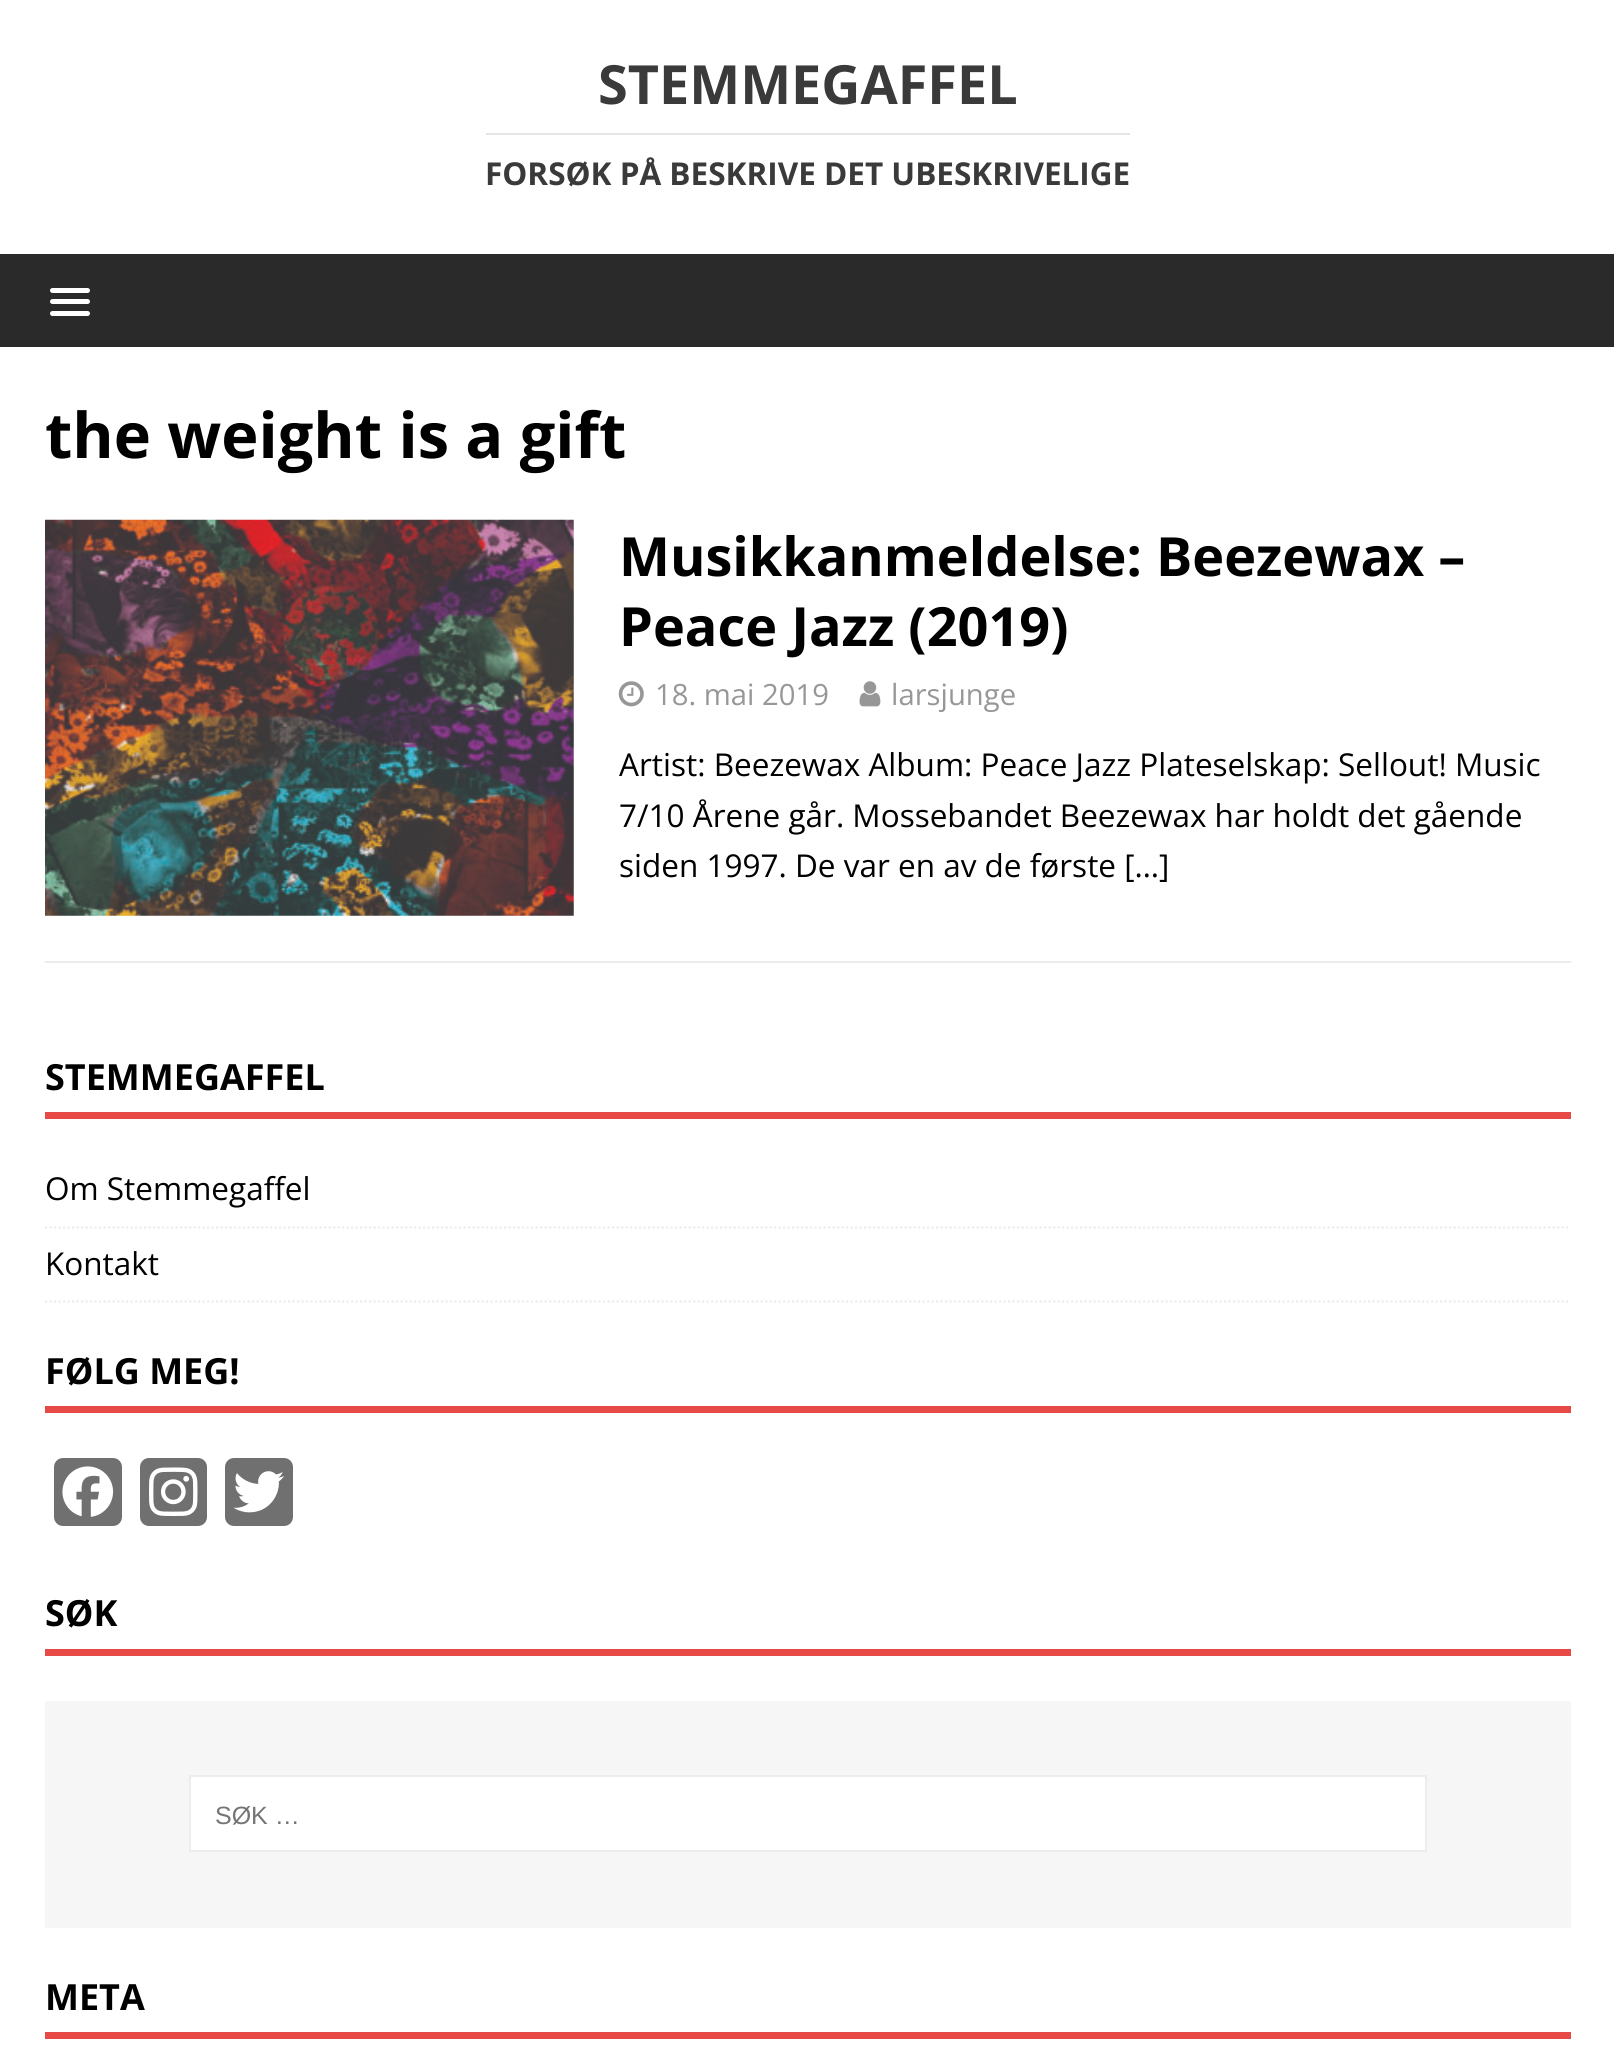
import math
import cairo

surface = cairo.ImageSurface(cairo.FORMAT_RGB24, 1614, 2054)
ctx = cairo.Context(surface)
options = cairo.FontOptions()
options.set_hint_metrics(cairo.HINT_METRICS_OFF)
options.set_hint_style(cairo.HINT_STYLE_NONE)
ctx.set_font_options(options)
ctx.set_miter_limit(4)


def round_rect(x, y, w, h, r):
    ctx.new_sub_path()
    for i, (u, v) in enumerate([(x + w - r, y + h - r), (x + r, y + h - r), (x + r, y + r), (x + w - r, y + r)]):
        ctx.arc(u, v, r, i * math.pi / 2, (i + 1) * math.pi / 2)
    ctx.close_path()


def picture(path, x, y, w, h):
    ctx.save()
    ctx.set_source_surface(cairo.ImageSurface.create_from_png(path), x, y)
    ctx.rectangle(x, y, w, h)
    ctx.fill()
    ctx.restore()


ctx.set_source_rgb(1, 1, 1)
ctx.paint()
ctx.select_font_face("Open Sans", cairo.FONT_SLANT_NORMAL, cairo.FONT_WEIGHT_BOLD)
ctx.set_font_size(54)
ctx.set_source_rgb(0.227, 0.227, 0.227)
ctx.move_to(598, 104)
ctx.show_text("STEMMEGAFFEL")
ctx.set_source_rgb(0.898, 0.898, 0.898)
ctx.rectangle(486, 133, 644, 2)
ctx.fill()
ctx.set_font_size(31.5)
ctx.set_source_rgb(0.227, 0.227, 0.227)
ctx.move_to(485, 185)
ctx.show_text("FORSØK PÅ BESKRIVE DET UBESKRIVELIGE")
ctx.set_source_rgb(0.165, 0.165, 0.165)
ctx.rectangle(0, 254, 1614, 93)
ctx.fill()
ctx.set_source_rgb(1, 1, 1)
round_rect(50, 288, 40, 5, 2.5)
ctx.fill()
round_rect(50, 299, 40, 5, 2.5)
ctx.fill()
round_rect(50, 311, 40, 5, 2.5)
ctx.fill()
ctx.set_font_size(63)
ctx.set_source_rgb(0, 0, 0)
ctx.move_to(45, 458)
ctx.show_text("the weight is a gift")
ctx.set_source_rgb(0.922, 0.922, 0.922)
ctx.rectangle(45, 961, 1526, 2)
ctx.fill()
picture("img1.png", 45, 519, 529, 397)
ctx.set_font_size(54)
ctx.set_source_rgb(0, 0, 0)
ctx.move_to(619, 576)
ctx.show_text("Musikkanmeldelse: Beezewax –")
ctx.move_to(619, 646)
ctx.show_text("Peace Jazz (2019)")
picture("img2.png", 618, 681, 26, 26)
ctx.select_font_face("Open Sans")
ctx.set_font_size(29.25)
ctx.set_source_rgb(0.592, 0.592, 0.592)
ctx.move_to(655, 705)
ctx.show_text("18. mai 2019")
picture("img3.png", 859, 681, 22, 26)
ctx.move_to(891, 705)
ctx.show_text("larsjunge")
ctx.set_font_size(31.5)
ctx.set_source_rgb(0, 0, 0)
ctx.move_to(619, 776)
ctx.show_text("Artist: Beezewax Album: Peace Jazz Plateselskap: Sellout! Music")
ctx.move_to(619, 827)
ctx.show_text("7/10 Årene går. Mossebandet Beezewax har holdt det gående")
ctx.move_to(619, 877)
ctx.show_text("siden 1997. De var en av de første […]")
ctx.set_source_rgb(0.902, 0.286, 0.275)
ctx.rectangle(45, 1112, 1526, 7)
ctx.fill()
ctx.select_font_face("Open Sans", cairo.FONT_SLANT_NORMAL, cairo.FONT_WEIGHT_BOLD)
ctx.set_font_size(36)
ctx.set_source_rgb(0, 0, 0)
ctx.move_to(45, 1090)
ctx.show_text("STEMMEGAFFEL")
ctx.new_path()
ctx.move_to(45, 1227.5)
ctx.line_to(1570.5, 1227.5)
ctx.set_source_rgb(0.922, 0.922, 0.922)
ctx.set_line_width(2.2)
ctx.set_dash([2.25, 2.25])
ctx.stroke()
ctx.select_font_face("Open Sans")
ctx.set_font_size(31.5)
ctx.set_source_rgb(0, 0, 0)
ctx.move_to(45, 1200)
ctx.show_text("Om Stemmegaffel")
ctx.new_path()
ctx.move_to(45, 1301.5)
ctx.line_to(1570.5, 1301.5)
ctx.set_source_rgb(0.922, 0.922, 0.922)
ctx.stroke()
ctx.set_source_rgb(0, 0, 0)
ctx.move_to(45, 1275)
ctx.show_text("Kontakt")
ctx.set_source_rgb(0.902, 0.286, 0.275)
ctx.rectangle(45, 1406, 1526, 7)
ctx.fill()
ctx.select_font_face("Open Sans", cairo.FONT_SLANT_NORMAL, cairo.FONT_WEIGHT_BOLD)
ctx.set_font_size(36)
ctx.set_source_rgb(0, 0, 0)
ctx.move_to(45, 1384)
ctx.show_text("FØLG MEG!")
ctx.set_source_rgb(0.439, 0.439, 0.439)
round_rect(54, 1458, 68, 68, 9)
ctx.fill()
picture("img4.png", 62, 1466, 52, 51)
round_rect(140, 1458, 67, 68, 9)
ctx.fill()
picture("img5.png", 149, 1467, 49, 49)
round_rect(225, 1458, 68, 68, 9)
ctx.fill()
picture("img6.png", 233, 1471, 51, 42)
ctx.set_source_rgb(0.902, 0.286, 0.275)
ctx.rectangle(45, 1649, 1526, 7)
ctx.fill()
ctx.set_source_rgb(0, 0, 0)
ctx.move_to(45, 1626)
ctx.show_text("SØK")
ctx.set_source_rgb(0.961, 0.961, 0.961)
ctx.rectangle(45, 1701, 1526, 227)
ctx.fill()
ctx.set_source_rgb(1, 1, 1)
ctx.rectangle(190, 1776, 1236, 75)
ctx.fill_preserve()
ctx.set_source_rgb(0.922, 0.922, 0.922)
ctx.set_line_width(2)
ctx.set_dash([])
ctx.stroke()
ctx.select_font_face("Liberation Sans")
ctx.set_font_size(25)
ctx.set_source_rgb(0.459, 0.459, 0.459)
ctx.move_to(215, 1824)
ctx.show_text("SØK …")
ctx.set_source_rgb(0.902, 0.286, 0.275)
ctx.rectangle(45, 2032, 1526, 7)
ctx.fill()
ctx.select_font_face("Open Sans", cairo.FONT_SLANT_NORMAL, cairo.FONT_WEIGHT_BOLD)
ctx.set_font_size(36)
ctx.set_source_rgb(0, 0, 0)
ctx.move_to(45, 2010)
ctx.show_text("META")
surface.write_to_png("page.png")
